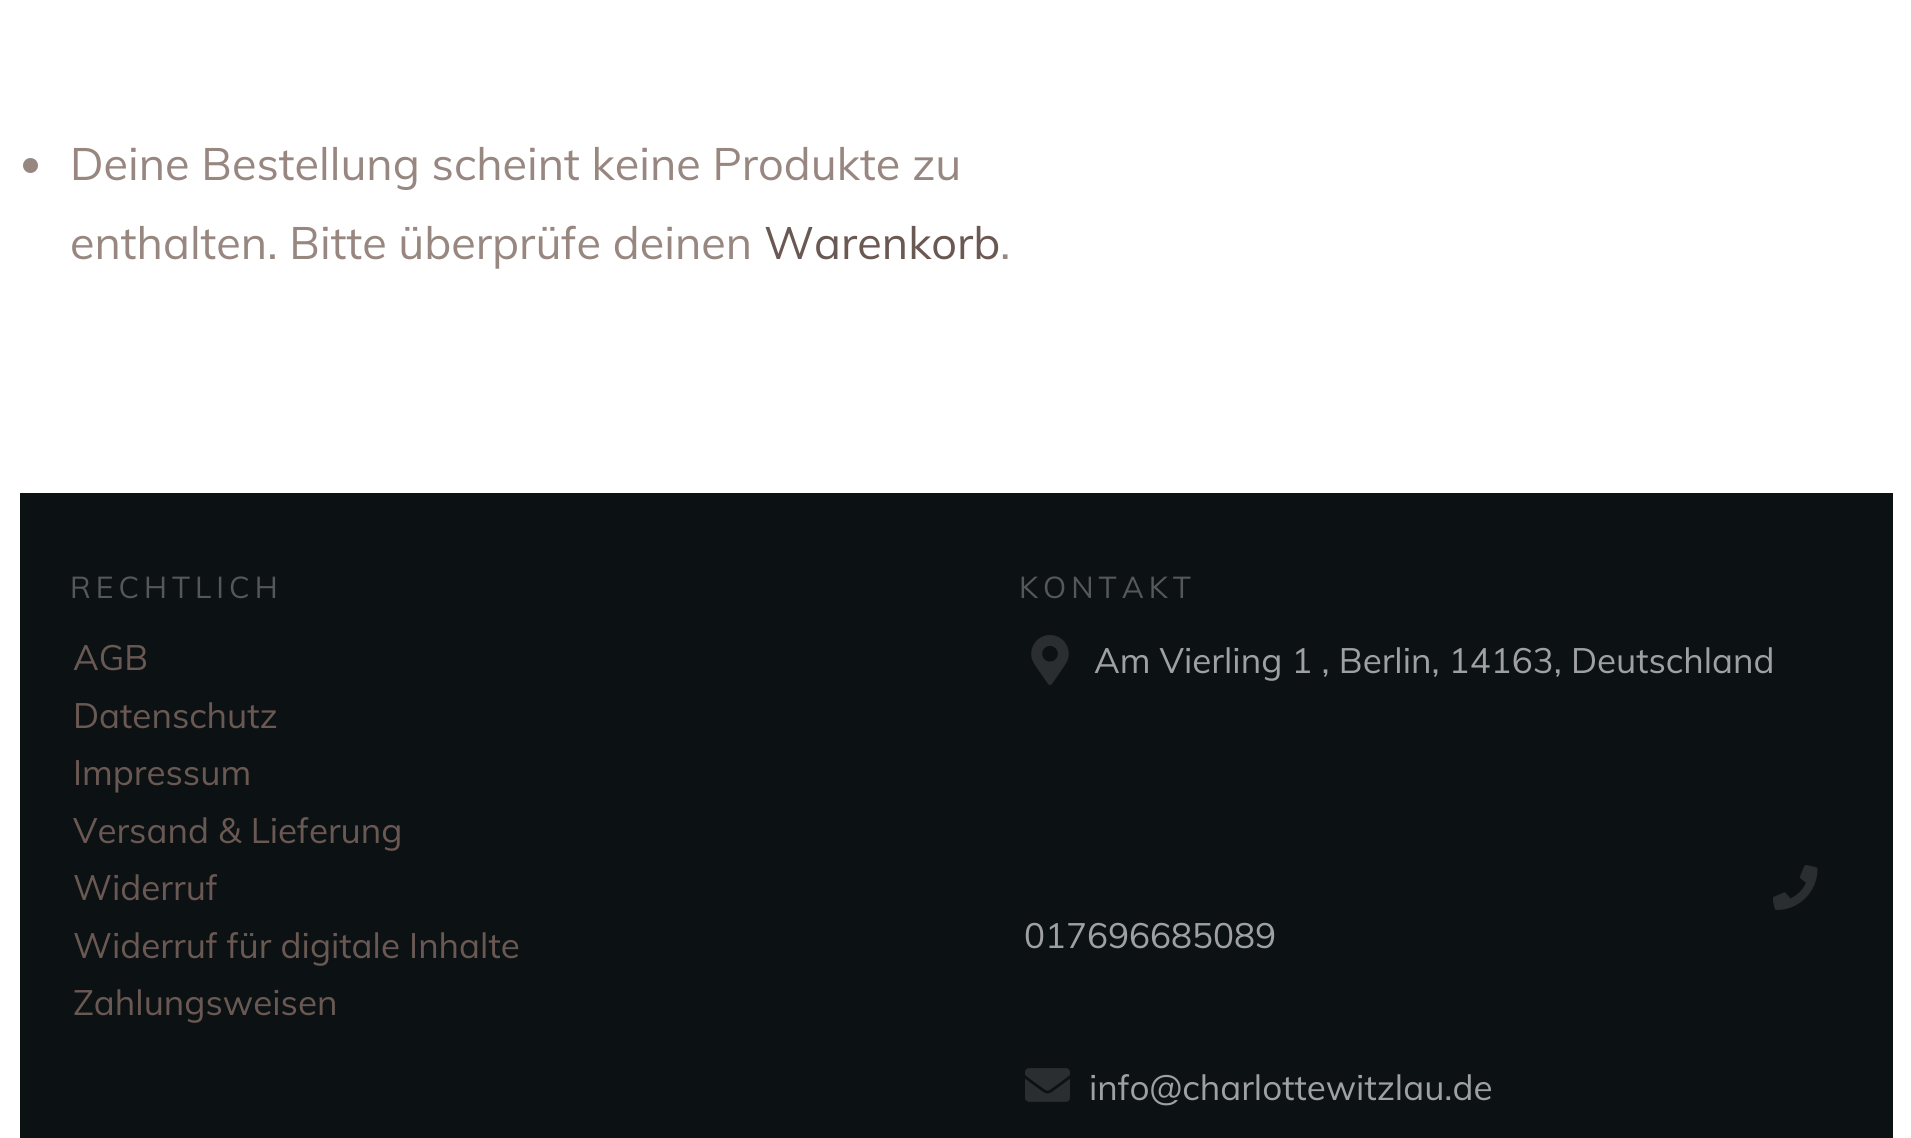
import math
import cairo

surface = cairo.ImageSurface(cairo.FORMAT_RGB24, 1911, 1138)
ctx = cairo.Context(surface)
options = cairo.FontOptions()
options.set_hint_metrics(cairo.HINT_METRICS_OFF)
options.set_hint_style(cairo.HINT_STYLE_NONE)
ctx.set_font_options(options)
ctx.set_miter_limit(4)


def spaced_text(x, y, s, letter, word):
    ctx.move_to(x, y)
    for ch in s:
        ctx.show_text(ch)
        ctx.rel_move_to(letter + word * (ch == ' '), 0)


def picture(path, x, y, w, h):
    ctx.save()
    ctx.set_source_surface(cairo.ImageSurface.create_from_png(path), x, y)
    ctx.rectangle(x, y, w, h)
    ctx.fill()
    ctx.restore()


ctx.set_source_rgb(1, 1, 1)
ctx.paint()
ctx.set_source_rgb(0.596, 0.529, 0.502)
ctx.arc(30.5, 165.5, 7.5, 0, 2 * math.pi)
ctx.fill()
ctx.select_font_face("Muli")
ctx.set_font_size(45)
ctx.move_to(70, 180)
ctx.show_text("Deine Bestellung scheint keine Produkte zu")
ctx.move_to(70, 259)
ctx.show_text("enthalten. Bitte überprüfe deinen")
ctx.set_source_rgb(0.416, 0.345, 0.325)
ctx.move_to(764, 259)
ctx.show_text("Warenkorb")
ctx.set_source_rgb(0.596, 0.529, 0.502)
ctx.move_to(1000, 259)
ctx.show_text(".")
ctx.set_source_rgb(0.047, 0.067, 0.082)
ctx.rectangle(20, 493, 1873, 645)
ctx.fill()
ctx.set_font_size(30)
ctx.set_source_rgb(0.333, 0.345, 0.357)
spaced_text(70, 598, "RECHTLICH", 5, 0)
ctx.set_font_size(35)
ctx.set_source_rgb(0.416, 0.345, 0.325)
ctx.move_to(73, 670)
ctx.show_text("AGB")
ctx.move_to(73, 728)
ctx.show_text("Datenschutz")
ctx.move_to(73, 785)
ctx.show_text("Impressum")
ctx.move_to(73, 843)
ctx.show_text("Versand & Lieferung")
ctx.move_to(73, 900)
ctx.show_text("Widerruf")
ctx.move_to(73, 958)
ctx.show_text("Widerruf für digitale Inhalte")
ctx.move_to(73, 1015)
ctx.show_text("Zahlungsweisen")
ctx.set_font_size(30)
ctx.set_source_rgb(0.333, 0.345, 0.357)
spaced_text(1019, 598, "KONTAKT", 5, 0)
picture("img1.png", 1031, 635, 38, 50)
ctx.set_font_size(35)
ctx.set_source_rgb(0.62, 0.627, 0.631)
ctx.move_to(1094, 673)
ctx.show_text("Am Vierling 1 , Berlin, 14163, Deutschland")
picture("img2.png", 1773, 865, 45, 45)
ctx.move_to(1024, 948)
ctx.show_text("017696685089")
picture("img3.png", 1025, 1068, 45, 34)
ctx.move_to(1089, 1100)
ctx.show_text("info@charlottewitzlau.de")
surface.write_to_png("page.png")
